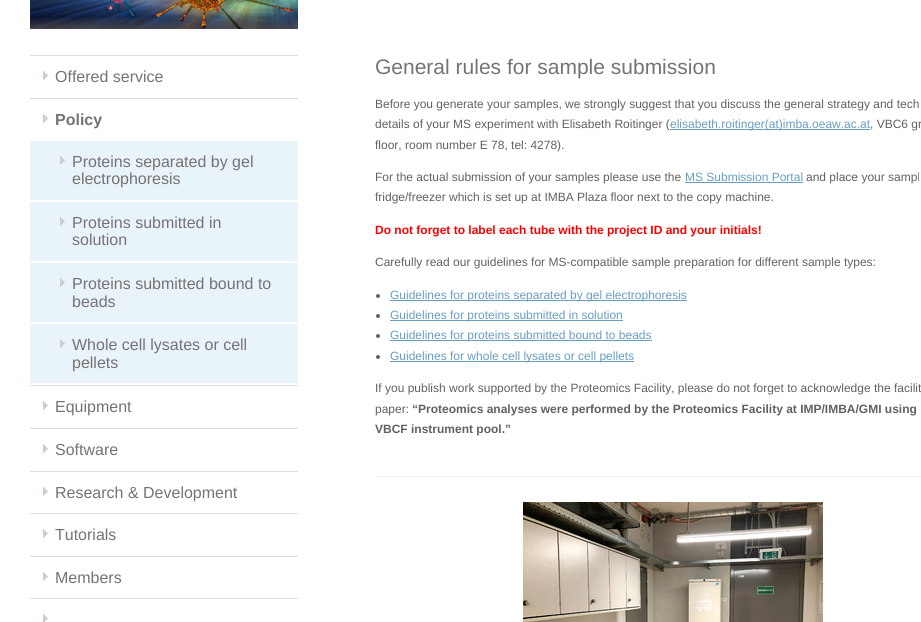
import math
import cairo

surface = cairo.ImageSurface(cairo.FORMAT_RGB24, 921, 622)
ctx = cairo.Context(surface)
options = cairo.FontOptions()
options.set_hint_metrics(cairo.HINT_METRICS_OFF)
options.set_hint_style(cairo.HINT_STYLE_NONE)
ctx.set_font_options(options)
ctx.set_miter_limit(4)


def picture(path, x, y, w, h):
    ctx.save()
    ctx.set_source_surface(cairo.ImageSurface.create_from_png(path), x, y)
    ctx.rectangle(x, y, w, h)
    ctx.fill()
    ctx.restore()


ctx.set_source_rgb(1, 1, 1)
ctx.paint()
picture("img1.png", 30, 0, 268, 29)
ctx.set_source_rgb(0.867, 0.867, 0.867)
ctx.rectangle(30, 55, 268, 1)
ctx.fill()
picture("img2.png", 43, 71, 5, 10)
ctx.select_font_face("Liberation Sans")
ctx.set_font_size(16)
ctx.set_source_rgb(0.459, 0.451, 0.451)
ctx.move_to(55, 82)
ctx.show_text("Offered service")
ctx.set_source_rgb(0.867, 0.867, 0.867)
ctx.rectangle(30, 98, 268, 1)
ctx.fill()
picture("img2.png", 43, 114, 5, 10)
ctx.select_font_face("Liberation Sans", cairo.FONT_SLANT_NORMAL, cairo.FONT_WEIGHT_BOLD)
ctx.set_source_rgb(0.459, 0.451, 0.451)
ctx.move_to(55, 125)
ctx.show_text("Policy")
ctx.set_source_rgb(0.914, 0.953, 0.98)
ctx.rectangle(30, 141, 268, 59)
ctx.fill()
picture("img3.png", 60, 156, 5, 9)
ctx.select_font_face("Liberation Sans")
ctx.set_source_rgb(0.459, 0.451, 0.451)
ctx.move_to(72, 167)
ctx.show_text("Proteins separated by gel")
ctx.move_to(72, 184)
ctx.show_text("electrophoresis")
ctx.set_source_rgb(0.914, 0.953, 0.98)
ctx.rectangle(30, 202, 268, 59)
ctx.fill()
picture("img3.png", 60, 217, 5, 9)
ctx.set_source_rgb(0.459, 0.451, 0.451)
ctx.move_to(72, 228)
ctx.show_text("Proteins submitted in")
ctx.move_to(72, 245)
ctx.show_text("solution")
ctx.set_source_rgb(0.914, 0.953, 0.98)
ctx.rectangle(30, 263, 268, 59)
ctx.fill()
picture("img3.png", 60, 278, 5, 9)
ctx.set_source_rgb(0.459, 0.451, 0.451)
ctx.move_to(72, 289)
ctx.show_text("Proteins submitted bound to")
ctx.move_to(72, 307)
ctx.show_text("beads")
ctx.set_source_rgb(0.914, 0.953, 0.98)
ctx.rectangle(30, 324, 268, 59)
ctx.fill()
picture("img3.png", 60, 339, 5, 9)
ctx.set_source_rgb(0.459, 0.451, 0.451)
ctx.move_to(72, 350)
ctx.show_text("Whole cell lysates or cell")
ctx.move_to(72, 368)
ctx.show_text("pellets")
ctx.set_source_rgb(0.867, 0.867, 0.867)
ctx.rectangle(30, 385, 268, 1)
ctx.fill()
picture("img2.png", 43, 401, 5, 10)
ctx.set_source_rgb(0.459, 0.451, 0.451)
ctx.move_to(55, 412)
ctx.show_text("Equipment")
ctx.set_source_rgb(0.867, 0.867, 0.867)
ctx.rectangle(30, 428, 268, 1)
ctx.fill()
picture("img2.png", 43, 444, 5, 10)
ctx.set_source_rgb(0.459, 0.451, 0.451)
ctx.move_to(55, 455)
ctx.show_text("Software")
ctx.set_source_rgb(0.867, 0.867, 0.867)
ctx.rectangle(30, 471, 268, 1)
ctx.fill()
picture("img4.png", 43, 487, 5, 9)
ctx.set_source_rgb(0.459, 0.451, 0.451)
ctx.move_to(55, 498)
ctx.show_text("Research & Development")
ctx.set_source_rgb(0.867, 0.867, 0.867)
ctx.rectangle(30, 513, 268, 1)
ctx.fill()
picture("img2.png", 43, 529, 5, 10)
ctx.set_source_rgb(0.459, 0.451, 0.451)
ctx.move_to(55, 540)
ctx.show_text("Tutorials")
ctx.set_source_rgb(0.867, 0.867, 0.867)
ctx.rectangle(30, 556, 268, 1)
ctx.fill()
picture("img4.png", 43, 572, 5, 9)
ctx.set_source_rgb(0.459, 0.451, 0.451)
ctx.move_to(55, 583)
ctx.show_text("Members")
ctx.set_source_rgb(0.867, 0.867, 0.867)
ctx.rectangle(30, 598, 268, 1)
ctx.fill()
picture("img5.png", 43, 614, 5, 8)
ctx.set_source_rgb(0.937, 0.937, 0.937)
ctx.rectangle(375, 476, 546, 1)
ctx.fill()
ctx.set_font_size(21)
ctx.set_source_rgb(0.459, 0.451, 0.451)
ctx.move_to(375, 74)
ctx.show_text("General rules for sample submission")
ctx.set_font_size(12)
ctx.set_source_rgb(0.384, 0.38, 0.376)
ctx.move_to(375, 108)
ctx.show_text("Before you generate your samples, we strongly suggest that you discuss the general strategy and tech")
ctx.move_to(375, 128)
ctx.show_text("details of your MS experiment with Elisabeth Roitinger (")
ctx.set_source_rgb(0.404, 0.616, 0.761)
ctx.rectangle(670, 129, 200, 1)
ctx.fill()
ctx.move_to(670, 128)
ctx.show_text("elisabeth.roitinger(at)imba.oeaw.ac.at")
ctx.set_source_rgb(0.384, 0.38, 0.376)
ctx.move_to(870, 128)
ctx.show_text(", VBC6 gr")
ctx.move_to(375, 149)
ctx.show_text("floor, room number E 78, tel: 4278).")
ctx.move_to(375, 181)
ctx.show_text("For the actual submission of your samples please use the")
ctx.set_source_rgb(0.404, 0.616, 0.761)
ctx.move_to(685, 181)
ctx.show_text("MS Submission Portal")
ctx.rectangle(685, 182, 118, 1)
ctx.fill()
ctx.set_source_rgb(0.384, 0.38, 0.376)
ctx.move_to(806, 181)
ctx.show_text("and place your sampl")
ctx.move_to(375, 201)
ctx.show_text("fridge/freezer which is set up at IMBA Plaza floor next to the copy machine.")
ctx.select_font_face("Liberation Sans", cairo.FONT_SLANT_NORMAL, cairo.FONT_WEIGHT_BOLD)
ctx.set_source_rgb(1, 0, 0)
ctx.move_to(375, 234)
ctx.show_text("Do not forget to label each tube with the project ID and your initials!")
ctx.select_font_face("Liberation Sans")
ctx.set_source_rgb(0.384, 0.38, 0.376)
ctx.move_to(375, 266)
ctx.show_text("Carefully read our guidelines for MS-compatible sample preparation for different sample types:")
ctx.new_path()
ctx.arc(378, 296, 2, 0, 2 * math.pi)
ctx.fill()
ctx.set_source_rgb(0.404, 0.616, 0.761)
ctx.rectangle(390, 300, 297, 1)
ctx.fill()
ctx.move_to(390, 299)
ctx.show_text("Guidelines for proteins separated by gel electrophoresis")
ctx.set_source_rgb(0.384, 0.38, 0.376)
ctx.new_path()
ctx.arc(378, 316, 2, 0, 2 * math.pi)
ctx.fill()
ctx.set_source_rgb(0.404, 0.616, 0.761)
ctx.rectangle(390, 320, 233, 1)
ctx.fill()
ctx.move_to(390, 319)
ctx.show_text("Guidelines for proteins submitted in solution")
ctx.set_source_rgb(0.384, 0.38, 0.376)
ctx.new_path()
ctx.arc(378, 336, 2, 0, 2 * math.pi)
ctx.fill()
ctx.set_source_rgb(0.404, 0.616, 0.761)
ctx.rectangle(390, 340, 262, 1)
ctx.fill()
ctx.move_to(390, 339)
ctx.show_text("Guidelines for proteins submitted bound to beads")
ctx.set_source_rgb(0.384, 0.38, 0.376)
ctx.new_path()
ctx.arc(378, 357, 2, 0, 2 * math.pi)
ctx.fill()
ctx.set_source_rgb(0.404, 0.616, 0.761)
ctx.rectangle(390, 361, 244, 1)
ctx.fill()
ctx.move_to(390, 360)
ctx.show_text("Guidelines for whole cell lysates or cell pellets")
ctx.set_source_rgb(0.384, 0.38, 0.376)
ctx.move_to(375, 392)
ctx.show_text("If you publish work supported by the Proteomics Facility, please do not forget to acknowledge the facilit")
ctx.move_to(375, 413)
ctx.show_text("paper:")
ctx.select_font_face("Liberation Sans", cairo.FONT_SLANT_NORMAL, cairo.FONT_WEIGHT_BOLD)
ctx.move_to(412, 413)
ctx.show_text("“Proteomics analyses were performed by the Proteomics Facility at IMP/IMBA/GMI using")
ctx.move_to(375, 433)
ctx.show_text("VBCF instrument pool.”")
picture("img6.png", 523, 502, 300, 120)
surface.write_to_png("page.png")
